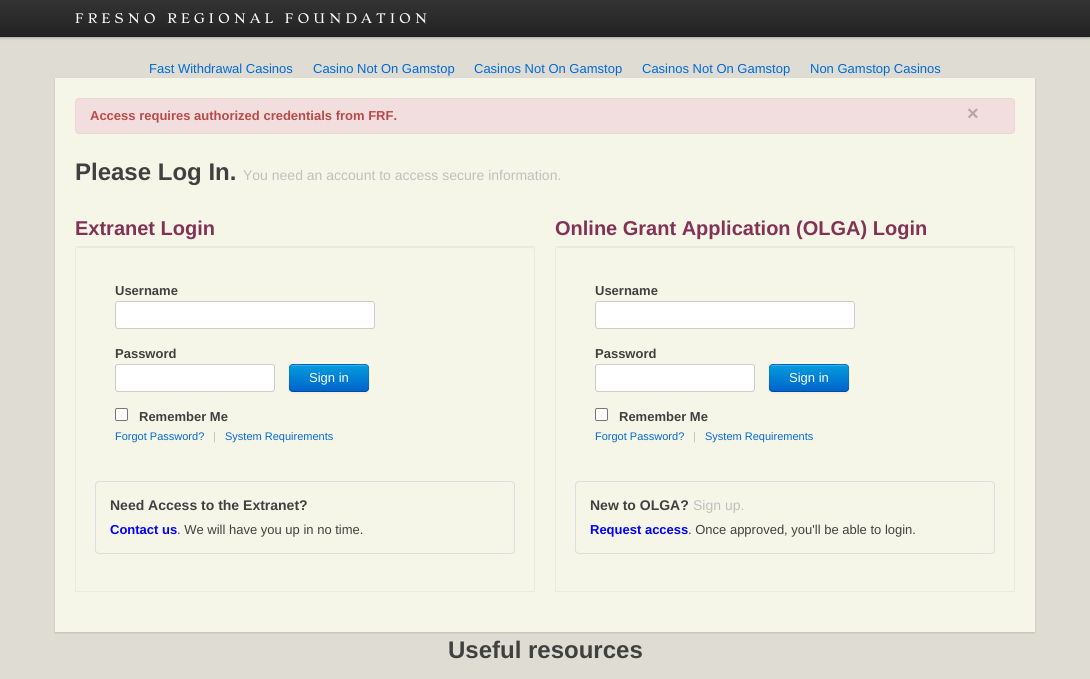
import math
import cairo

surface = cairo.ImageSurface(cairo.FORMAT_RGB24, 1090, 679)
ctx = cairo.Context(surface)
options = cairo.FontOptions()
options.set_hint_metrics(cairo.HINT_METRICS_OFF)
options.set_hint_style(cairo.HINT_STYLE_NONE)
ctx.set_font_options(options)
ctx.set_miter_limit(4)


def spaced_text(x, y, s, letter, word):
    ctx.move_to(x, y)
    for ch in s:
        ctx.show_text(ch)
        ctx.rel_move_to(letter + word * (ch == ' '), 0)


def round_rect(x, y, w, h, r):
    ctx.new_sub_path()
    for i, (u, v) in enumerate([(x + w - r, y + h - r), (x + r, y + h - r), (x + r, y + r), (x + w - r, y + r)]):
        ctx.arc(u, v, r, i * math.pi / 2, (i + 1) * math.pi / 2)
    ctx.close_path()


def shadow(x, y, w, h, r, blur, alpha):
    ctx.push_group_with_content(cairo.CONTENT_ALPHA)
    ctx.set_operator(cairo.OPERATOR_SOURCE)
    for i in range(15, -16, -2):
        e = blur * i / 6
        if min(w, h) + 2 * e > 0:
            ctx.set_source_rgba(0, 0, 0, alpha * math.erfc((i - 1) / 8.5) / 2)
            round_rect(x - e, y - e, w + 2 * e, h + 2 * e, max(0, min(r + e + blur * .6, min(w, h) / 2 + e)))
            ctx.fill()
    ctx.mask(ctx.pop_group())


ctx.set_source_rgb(0.875, 0.867, 0.827)
ctx.paint()
ctx.set_source_rgb(0, 0, 0)
shadow(0, 1, 1090, 37, 0, 1.5, 0.25)
gradient = cairo.LinearGradient(545, 0, 545, 37)
gradient.add_color_stop_rgba(0, 0.2, 0.2, 0.2, 1)
gradient.add_color_stop_rgba(1, 0.133, 0.133, 0.133, 1)
ctx.set_source(gradient)
ctx.rectangle(0, 0, 1090, 36)
ctx.fill()
ctx.set_source_rgb(0.122, 0.122, 0.122)
ctx.rectangle(0, 36, 1090, 1)
ctx.fill()
ctx.select_font_face("Stoke Light")
ctx.set_font_size(13)
ctx.set_source_rgb(1, 1, 1)
spaced_text(75, 23, "FRESNO REGIONAL FOUNDATION", 4, 0)
ctx.select_font_face("Liberation Sans")
ctx.set_source_rgb(0, 0.412, 0.839)
ctx.move_to(149, 73)
ctx.show_text("Fast Withdrawal Casinos")
ctx.set_source_rgb(0, 0, 0)
shadow(55, 79, 980, 554, 0, 1, 0.15)
ctx.set_source_rgb(0, 0.412, 0.839)
ctx.move_to(313, 73)
ctx.show_text("Casino Not On Gamstop")
ctx.move_to(474, 73)
ctx.show_text("Casinos Not On Gamstop")
ctx.move_to(642, 73)
ctx.show_text("Casinos Not On Gamstop")
ctx.move_to(810, 73)
ctx.show_text("Non Gamstop Casinos")
ctx.set_source_rgb(0.961, 0.961, 0.91)
ctx.rectangle(55, 78, 980, 554)
ctx.fill()
ctx.set_source_rgb(0.949, 0.871, 0.871)
round_rect(75.5, 98.5, 939, 35, 3.5)
ctx.fill_preserve()
ctx.set_source_rgb(0.933, 0.827, 0.843)
ctx.set_line_width(1)
ctx.stroke()
ctx.select_font_face("Liberation Sans", cairo.FONT_SLANT_NORMAL, cairo.FONT_WEIGHT_BOLD)
ctx.set_source_rgb(0.725, 0.29, 0.282)
ctx.move_to(90, 120)
ctx.show_text("Access requires authorized credentials from FRF.")
ctx.set_font_size(20)
ctx.set_source_rgb(0.714, 0.655, 0.655)
ctx.move_to(967, 120)
ctx.show_text("×")
ctx.set_font_size(24)
ctx.set_source_rgb(0.251, 0.251, 0.251)
ctx.move_to(75, 180)
ctx.show_text("Please Log In.")
ctx.select_font_face("Liberation Sans")
ctx.set_font_size(14)
ctx.set_source_rgb(0.749, 0.749, 0.749)
ctx.move_to(243, 180)
ctx.show_text("You need an account to access secure information.")
ctx.select_font_face("Liberation Sans", cairo.FONT_SLANT_NORMAL, cairo.FONT_WEIGHT_BOLD)
ctx.set_font_size(20)
ctx.set_source_rgb(0.506, 0.196, 0.333)
ctx.move_to(75, 235)
ctx.show_text("Extranet Login")
ctx.set_source_rgb(0.914, 0.914, 0.863)
ctx.new_path()
ctx.move_to(79, 248)
ctx.line_to(531, 248)
ctx.curve_to(533, 248, 534, 249, 534, 251)
ctx.curve_to(534, 249, 534, 247, 532, 247)
ctx.line_to(78, 247)
ctx.line_to(76, 249)
ctx.line_to(76, 251)
ctx.curve_to(76, 249, 77, 248, 79, 248)
ctx.close_path()
ctx.fill()
ctx.rectangle(75.5, 246.5, 459, 345)
ctx.set_source_rgba(0, 0, 0, 0.05)
ctx.stroke()
ctx.set_font_size(13)
ctx.set_source_rgb(0.251, 0.251, 0.251)
ctx.move_to(115, 295)
ctx.show_text("Username")
ctx.set_source_rgb(1, 1, 1)
round_rect(115.5, 301.5, 259, 27, 2.5)
ctx.fill_preserve()
ctx.set_source_rgb(0.8, 0.8, 0.8)
ctx.stroke()
ctx.set_source_rgb(0.251, 0.251, 0.251)
ctx.move_to(115, 358)
ctx.show_text("Password")
ctx.set_source_rgb(1, 1, 1)
round_rect(115.5, 364.5, 159, 27, 2.5)
ctx.fill_preserve()
ctx.set_source_rgb(0.8, 0.8, 0.8)
ctx.stroke()
ctx.set_source_rgb(0, 0, 0)
shadow(289, 365, 80, 28, 4, 1, 0.05)
ctx.set_source_rgb(0, 0.392, 0.804)
round_rect(289, 364, 80, 28, 4)
ctx.fill()
ctx.save()
round_rect(289, 364, 80, 28, 4)
ctx.clip()
gradient = cairo.LinearGradient(329, 365, 329, 391)
gradient.add_color_stop_rgba(0, 0.016, 0.612, 0.859, 1)
gradient.add_color_stop_rgba(1, 0, 0.392, 0.804, 1)
ctx.set_source(gradient)
ctx.rectangle(289, 365, 80, 26)
ctx.fill()
ctx.restore()
ctx.set_source_rgba(1, 1, 1, 0.2)
ctx.new_path()
ctx.move_to(293, 366)
ctx.line_to(365, 366)
ctx.curve_to(367, 366, 368, 367, 368, 369)
ctx.curve_to(368, 362, 357, 365, 353, 365)
ctx.line_to(305, 365)
ctx.curve_to(301, 365, 290, 362, 290, 369)
ctx.curve_to(290, 367, 291, 366, 293, 366)
ctx.close_path()
ctx.fill()
ctx.new_path()
ctx.move_to(367.5, 390.5)
ctx.curve_to(367, 391, 366, 391.5, 365, 391.5)
ctx.line_to(293, 391.5)
ctx.curve_to(292, 391.5, 291, 391, 290.5, 390.5)
ctx.set_source_rgba(0, 0, 0, 0.25)
ctx.stroke()
ctx.new_path()
ctx.move_to(290.5, 390.5)
ctx.curve_to(288.5, 388, 289.5, 380.5, 289.5, 378)
ctx.curve_to(289.5, 362, 287.5, 364.5, 305, 364.5)
ctx.line_to(353, 364.5)
ctx.curve_to(372, 364.5, 368.5, 362.5, 368.5, 381.5)
ctx.curve_to(368.5, 384, 369.5, 388.5, 367.5, 390.5)
ctx.set_source_rgba(0, 0, 0, 0.1)
ctx.stroke()
ctx.select_font_face("Liberation Sans")
ctx.set_source_rgb(1, 1, 1)
ctx.move_to(309, 382)
ctx.show_text("Sign in")
round_rect(115.5, 408.5, 12, 12, 1.5)
ctx.fill_preserve()
ctx.set_source_rgb(0.463, 0.463, 0.463)
ctx.stroke()
ctx.select_font_face("Liberation Sans", cairo.FONT_SLANT_NORMAL, cairo.FONT_WEIGHT_BOLD)
ctx.set_source_rgb(0.251, 0.251, 0.251)
ctx.move_to(139, 421)
ctx.show_text("Remember Me")
ctx.select_font_face("Liberation Sans")
ctx.set_font_size(11)
ctx.set_source_rgb(0, 0.412, 0.839)
ctx.move_to(115, 440)
ctx.show_text("Forgot Password?")
ctx.set_source_rgb(0.749, 0.749, 0.749)
ctx.move_to(213, 440)
ctx.show_text("|")
ctx.set_source_rgb(0, 0.412, 0.839)
ctx.move_to(225, 440)
ctx.show_text("System Requirements")
round_rect(95.5, 481.5, 419, 72, 3.5)
ctx.set_source_rgb(0.867, 0.867, 0.867)
ctx.stroke()
ctx.select_font_face("Liberation Sans", cairo.FONT_SLANT_NORMAL, cairo.FONT_WEIGHT_BOLD)
ctx.set_font_size(14)
ctx.set_source_rgb(0.251, 0.251, 0.251)
ctx.move_to(110, 510)
ctx.show_text("Need Access to the Extranet?")
ctx.set_font_size(13)
ctx.set_source_rgb(0, 0, 1)
ctx.move_to(110, 534)
ctx.show_text("Contact us")
ctx.select_font_face("Liberation Sans")
ctx.set_source_rgb(0.251, 0.251, 0.251)
ctx.move_to(177, 534)
ctx.show_text(". We will have you up in no time.")
ctx.select_font_face("Liberation Sans", cairo.FONT_SLANT_NORMAL, cairo.FONT_WEIGHT_BOLD)
ctx.set_font_size(20)
ctx.set_source_rgb(0.506, 0.196, 0.333)
ctx.move_to(555, 235)
ctx.show_text("Online Grant Application (OLGA) Login")
ctx.set_source_rgb(0.914, 0.914, 0.863)
ctx.new_path()
ctx.move_to(559, 248)
ctx.line_to(1011, 248)
ctx.curve_to(1013, 248, 1014, 249, 1014, 251)
ctx.curve_to(1014, 249, 1014, 247, 1012, 247)
ctx.line_to(558, 247)
ctx.line_to(556, 249)
ctx.line_to(556, 251)
ctx.curve_to(556, 249, 557, 248, 559, 248)
ctx.close_path()
ctx.fill()
ctx.rectangle(555.5, 246.5, 459, 345)
ctx.set_source_rgba(0, 0, 0, 0.05)
ctx.stroke()
ctx.set_font_size(13)
ctx.set_source_rgb(0.251, 0.251, 0.251)
ctx.move_to(595, 295)
ctx.show_text("Username")
ctx.set_source_rgb(1, 1, 1)
round_rect(595.5, 301.5, 259, 27, 2.5)
ctx.fill_preserve()
ctx.set_source_rgb(0.8, 0.8, 0.8)
ctx.stroke()
ctx.set_source_rgb(0.251, 0.251, 0.251)
ctx.move_to(595, 358)
ctx.show_text("Password")
ctx.set_source_rgb(1, 1, 1)
round_rect(595.5, 364.5, 159, 27, 2.5)
ctx.fill_preserve()
ctx.set_source_rgb(0.8, 0.8, 0.8)
ctx.stroke()
ctx.set_source_rgb(0, 0, 0)
shadow(769, 365, 80, 28, 4, 1, 0.05)
ctx.set_source_rgb(0, 0.392, 0.804)
round_rect(769, 364, 80, 28, 4)
ctx.fill()
ctx.save()
round_rect(769, 364, 80, 28, 4)
ctx.clip()
gradient = cairo.LinearGradient(809, 365, 809, 391)
gradient.add_color_stop_rgba(0, 0.016, 0.612, 0.859, 1)
gradient.add_color_stop_rgba(1, 0, 0.392, 0.804, 1)
ctx.set_source(gradient)
ctx.rectangle(769, 365, 80, 26)
ctx.fill()
ctx.restore()
ctx.set_source_rgba(1, 1, 1, 0.2)
ctx.new_path()
ctx.move_to(773, 366)
ctx.line_to(845, 366)
ctx.curve_to(847, 366, 848, 367, 848, 369)
ctx.curve_to(848, 362, 837, 365, 833, 365)
ctx.line_to(785, 365)
ctx.curve_to(781, 365, 770, 362, 770, 369)
ctx.curve_to(770, 367, 771, 366, 773, 366)
ctx.close_path()
ctx.fill()
ctx.new_path()
ctx.move_to(847.5, 390.5)
ctx.curve_to(847, 391, 846, 391.5, 845, 391.5)
ctx.line_to(773, 391.5)
ctx.curve_to(772, 391.5, 771, 391, 770.5, 390.5)
ctx.set_source_rgba(0, 0, 0, 0.25)
ctx.stroke()
ctx.new_path()
ctx.move_to(770.5, 390.5)
ctx.curve_to(768.5, 388, 769.5, 380.5, 769.5, 378)
ctx.curve_to(769.5, 362, 767.5, 364.5, 785, 364.5)
ctx.line_to(833, 364.5)
ctx.curve_to(852, 364.5, 848.5, 362.5, 848.5, 381.5)
ctx.curve_to(848.5, 384, 849.5, 388.5, 847.5, 390.5)
ctx.set_source_rgba(0, 0, 0, 0.1)
ctx.stroke()
ctx.select_font_face("Liberation Sans")
ctx.set_source_rgb(1, 1, 1)
ctx.move_to(789, 382)
ctx.show_text("Sign in")
round_rect(595.5, 408.5, 12, 12, 1.5)
ctx.fill_preserve()
ctx.set_source_rgb(0.463, 0.463, 0.463)
ctx.stroke()
ctx.select_font_face("Liberation Sans", cairo.FONT_SLANT_NORMAL, cairo.FONT_WEIGHT_BOLD)
ctx.set_source_rgb(0.251, 0.251, 0.251)
ctx.move_to(619, 421)
ctx.show_text("Remember Me")
ctx.select_font_face("Liberation Sans")
ctx.set_font_size(11)
ctx.set_source_rgb(0, 0.412, 0.839)
ctx.move_to(595, 440)
ctx.show_text("Forgot Password?")
ctx.set_source_rgb(0.749, 0.749, 0.749)
ctx.move_to(693, 440)
ctx.show_text("|")
ctx.set_source_rgb(0, 0.412, 0.839)
ctx.move_to(705, 440)
ctx.show_text("System Requirements")
round_rect(575.5, 481.5, 419, 72, 3.5)
ctx.set_source_rgb(0.867, 0.867, 0.867)
ctx.stroke()
ctx.select_font_face("Liberation Sans", cairo.FONT_SLANT_NORMAL, cairo.FONT_WEIGHT_BOLD)
ctx.set_font_size(14)
ctx.set_source_rgb(0.251, 0.251, 0.251)
ctx.move_to(590, 510)
ctx.show_text("New to OLGA?")
ctx.select_font_face("Liberation Sans")
ctx.set_source_rgb(0.749, 0.749, 0.749)
ctx.move_to(693, 510)
ctx.show_text("Sign up.")
ctx.select_font_face("Liberation Sans", cairo.FONT_SLANT_NORMAL, cairo.FONT_WEIGHT_BOLD)
ctx.set_font_size(13)
ctx.set_source_rgb(0, 0, 1)
ctx.move_to(590, 534)
ctx.show_text("Request access")
ctx.select_font_face("Liberation Sans")
ctx.set_source_rgb(0.251, 0.251, 0.251)
ctx.move_to(688, 534)
ctx.show_text(". Once approved, you'll be able to login.")
ctx.select_font_face("Liberation Sans", cairo.FONT_SLANT_NORMAL, cairo.FONT_WEIGHT_BOLD)
ctx.set_font_size(24)
ctx.move_to(448, 658)
ctx.show_text("Useful resources")
surface.write_to_png("page.png")
